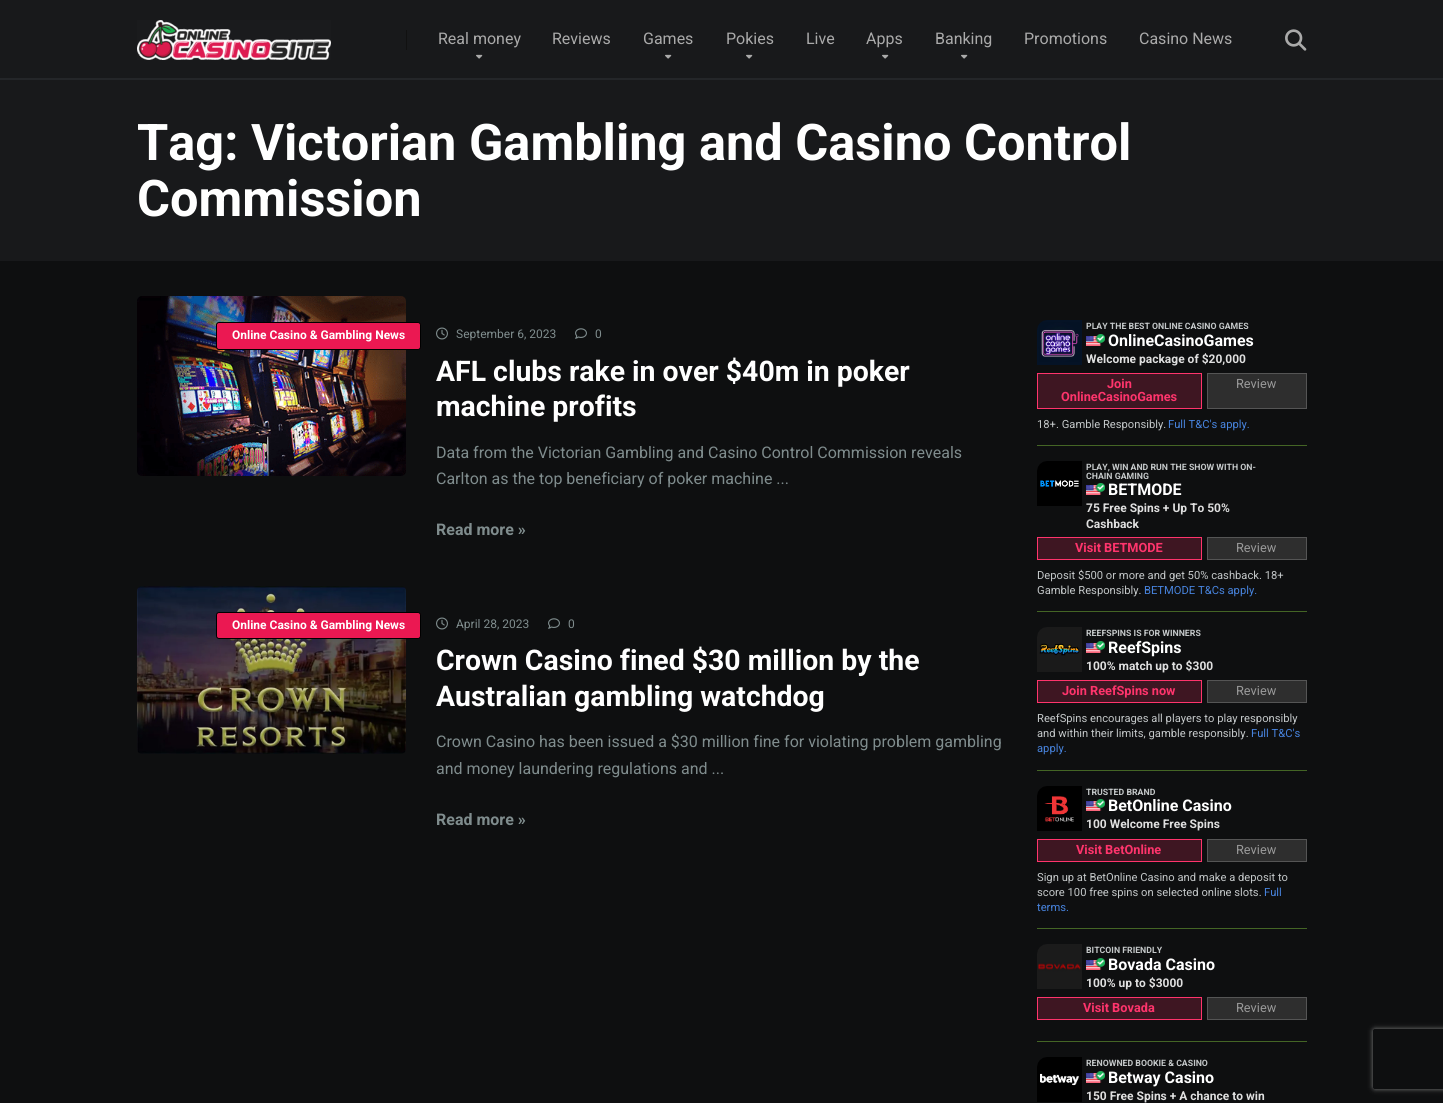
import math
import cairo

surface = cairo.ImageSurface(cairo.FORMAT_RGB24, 1443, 1103)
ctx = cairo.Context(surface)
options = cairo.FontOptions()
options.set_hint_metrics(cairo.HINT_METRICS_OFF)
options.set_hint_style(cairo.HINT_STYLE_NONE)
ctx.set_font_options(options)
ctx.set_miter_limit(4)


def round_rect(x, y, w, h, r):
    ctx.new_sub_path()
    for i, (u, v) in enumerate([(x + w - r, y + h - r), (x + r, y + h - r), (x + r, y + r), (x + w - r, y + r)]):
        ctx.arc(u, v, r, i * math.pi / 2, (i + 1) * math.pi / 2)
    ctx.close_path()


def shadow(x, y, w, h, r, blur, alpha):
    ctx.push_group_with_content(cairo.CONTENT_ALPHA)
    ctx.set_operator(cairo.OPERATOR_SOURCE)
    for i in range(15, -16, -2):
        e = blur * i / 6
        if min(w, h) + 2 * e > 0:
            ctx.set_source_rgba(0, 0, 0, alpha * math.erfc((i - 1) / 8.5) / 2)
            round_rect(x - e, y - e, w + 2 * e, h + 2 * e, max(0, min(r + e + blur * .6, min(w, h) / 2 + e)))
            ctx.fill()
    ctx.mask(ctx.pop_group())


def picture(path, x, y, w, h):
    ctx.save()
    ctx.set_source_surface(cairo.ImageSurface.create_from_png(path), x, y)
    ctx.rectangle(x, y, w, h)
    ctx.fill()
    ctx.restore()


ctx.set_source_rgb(0.055, 0.059, 0.063)
ctx.paint()
ctx.set_source_rgb(0.094, 0.098, 0.106)
ctx.rectangle(0, 0, 1443, 78)
ctx.fill()
ctx.set_source_rgb(0.141, 0.149, 0.161)
ctx.rectangle(0, 78, 1443, 2)
ctx.fill()
picture("img1.png", 137, 20, 194, 40)
ctx.set_source_rgb(0.067, 0.067, 0.067)
ctx.rectangle(406, 30, 1, 20)
ctx.fill()
ctx.select_font_face("Roboto")
ctx.set_font_size(16)
ctx.set_source_rgb(0.667, 0.667, 0.667)
ctx.move_to(438, 44)
ctx.show_text("Real money")
picture("img2.png", 476, 54, 7, 5)
ctx.move_to(552, 44)
ctx.show_text("Reviews")
ctx.move_to(643, 44)
ctx.show_text("Games")
picture("img2.png", 665, 54, 7, 5)
ctx.move_to(726, 44)
ctx.show_text("Pokies")
picture("img2.png", 746, 54, 7, 5)
ctx.move_to(806, 44)
ctx.show_text("Live")
ctx.move_to(866, 44)
ctx.show_text("Apps")
picture("img2.png", 882, 54, 7, 5)
ctx.move_to(935, 44)
ctx.show_text("Banking")
picture("img2.png", 961, 54, 7, 5)
ctx.move_to(1024, 44)
ctx.show_text("Promotions")
ctx.move_to(1139, 44)
ctx.show_text("Casino News")
picture("img3.png", 1285, 29, 22, 22)
ctx.set_source_rgb(0.094, 0.098, 0.106)
ctx.rectangle(0, 80, 1443, 181)
ctx.fill()
ctx.select_font_face("Roboto", cairo.FONT_SLANT_NORMAL, cairo.FONT_WEIGHT_BOLD)
ctx.set_font_size(50.5)
ctx.set_source_rgb(1, 1, 1)
ctx.move_to(137, 160)
ctx.show_text("Tag: Victorian Gambling and Casino Control")
ctx.move_to(137, 216)
ctx.show_text("Commission")
picture("img4.png", 137, 296, 269, 180)
ctx.set_source_rgb(0.918, 0.094, 0.322)
round_rect(216.5, 322.5, 204, 27, 2.5)
ctx.fill_preserve()
ctx.set_source_rgb(0, 0, 0)
ctx.set_line_width(1)
ctx.stroke()
ctx.set_font_size(12)
ctx.set_source_rgb(1, 1, 1)
ctx.move_to(232, 339)
ctx.show_text("Online Casino & Gambling News")
picture("img5.png", 436, 327, 12, 13)
ctx.select_font_face("Roboto")
ctx.set_source_rgb(0.498, 0.549, 0.553)
ctx.move_to(456, 338)
ctx.show_text("September 6, 2023")
picture("img6.png", 575, 328, 12, 11)
ctx.move_to(595, 338)
ctx.show_text("0")
ctx.select_font_face("Roboto", cairo.FONT_SLANT_NORMAL, cairo.FONT_WEIGHT_BOLD)
ctx.set_font_size(28.4)
ctx.set_source_rgb(1, 1, 1)
ctx.move_to(436, 381)
ctx.show_text("AFL clubs rake in over $40m in poker")
ctx.move_to(436, 416)
ctx.show_text("machine profits")
ctx.select_font_face("Roboto")
ctx.set_font_size(16)
ctx.set_source_rgb(0.498, 0.549, 0.553)
ctx.move_to(436, 458)
ctx.show_text("Data from the Victorian Gambling and Casino Control Commission reveals")
ctx.move_to(436, 484)
ctx.show_text("Carlton as the top beneficiary of poker machine ...")
ctx.select_font_face("Roboto", cairo.FONT_SLANT_NORMAL, cairo.FONT_WEIGHT_BOLD)
ctx.move_to(436, 535)
ctx.show_text("Read more »")
picture("img7.png", 137, 586, 269, 168)
ctx.set_source_rgb(0.918, 0.094, 0.322)
round_rect(216.5, 612.5, 204, 26, 2.5)
ctx.fill_preserve()
ctx.set_source_rgb(0, 0, 0)
ctx.stroke()
ctx.set_font_size(12)
ctx.set_source_rgb(1, 1, 1)
ctx.move_to(232, 629)
ctx.show_text("Online Casino & Gambling News")
picture("img5.png", 436, 617, 12, 13)
ctx.select_font_face("Roboto")
ctx.set_source_rgb(0.498, 0.549, 0.553)
ctx.move_to(456, 628)
ctx.show_text("April 28, 2023")
picture("img6.png", 548, 618, 12, 11)
ctx.move_to(568, 628)
ctx.show_text("0")
ctx.select_font_face("Roboto", cairo.FONT_SLANT_NORMAL, cairo.FONT_WEIGHT_BOLD)
ctx.set_font_size(28.4)
ctx.set_source_rgb(1, 1, 1)
ctx.move_to(436, 670)
ctx.show_text("Crown Casino fined $30 million by the")
ctx.move_to(436, 706)
ctx.show_text("Australian gambling watchdog")
ctx.select_font_face("Roboto")
ctx.set_font_size(16)
ctx.set_source_rgb(0.498, 0.549, 0.553)
ctx.move_to(436, 747)
ctx.show_text("Crown Casino has been issued a $30 million fine for violating problem gambling")
ctx.move_to(436, 774)
ctx.show_text("and money laundering regulations and ...")
ctx.select_font_face("Roboto", cairo.FONT_SLANT_NORMAL, cairo.FONT_WEIGHT_BOLD)
ctx.move_to(436, 825)
ctx.show_text("Read more »")
picture("img8.png", 1037, 320, 45, 45)
ctx.set_font_size(8.75)
ctx.set_source_rgb(0.765, 0.78, 0.784)
ctx.move_to(1086, 329)
ctx.show_text("PLAY THE BEST ONLINE CASINO GAMES")
picture("img9.png", 1086, 334, 19, 12)
ctx.set_font_size(16)
ctx.set_source_rgb(1, 1, 1)
ctx.move_to(1108, 346)
ctx.show_text("OnlineCasinoGames")
ctx.set_font_size(12)
ctx.set_source_rgb(0.875, 0.875, 0.875)
ctx.move_to(1086, 363)
ctx.show_text("Welcome package of $20,000")
ctx.set_source_rgb(0.243, 0.086, 0.133)
ctx.rectangle(1037.5, 373.5, 164, 35)
ctx.fill_preserve()
ctx.set_source_rgb(1, 0.204, 0.424)
ctx.stroke()
ctx.set_font_size(12.75)
ctx.move_to(1107, 388)
ctx.show_text("Join")
ctx.move_to(1061, 401)
ctx.show_text("OnlineCasinoGames")
ctx.set_source_rgb(0.18, 0.18, 0.18)
ctx.rectangle(1207.5, 373.5, 99, 35)
ctx.fill_preserve()
ctx.set_source_rgb(0.333, 0.333, 0.333)
ctx.stroke()
ctx.select_font_face("Roboto")
ctx.set_source_rgb(0.6, 0.6, 0.6)
ctx.move_to(1236, 388)
ctx.show_text("Review")
ctx.set_source_rgb(0.267, 0.396, 0.145)
ctx.rectangle(1037, 445, 270, 1)
ctx.fill()
ctx.set_font_size(11.2)
ctx.set_source_rgb(0.765, 0.78, 0.784)
ctx.move_to(1037, 428)
ctx.show_text("18+. Gamble Responsibly.")
ctx.set_source_rgb(0.278, 0.514, 0.867)
ctx.move_to(1168, 428)
ctx.show_text("Full T&C's apply.")
picture("img10.png", 1037, 461, 45, 45)
ctx.select_font_face("Roboto", cairo.FONT_SLANT_NORMAL, cairo.FONT_WEIGHT_BOLD)
ctx.set_font_size(8.75)
ctx.set_source_rgb(0.765, 0.78, 0.784)
ctx.move_to(1086, 470)
ctx.show_text("PLAY, WIN AND RUN THE SHOW WITH ON-")
ctx.move_to(1086, 479)
ctx.show_text("CHAIN GAMING")
picture("img9.png", 1086, 483, 19, 12)
ctx.set_font_size(16)
ctx.set_source_rgb(1, 1, 1)
ctx.move_to(1108, 495)
ctx.show_text("BETMODE")
ctx.set_font_size(12)
ctx.set_source_rgb(0.875, 0.875, 0.875)
ctx.move_to(1086, 512)
ctx.show_text("75 Free Spins + Up To 50%")
ctx.move_to(1086, 528)
ctx.show_text("Cashback")
ctx.set_source_rgb(0.243, 0.086, 0.133)
ctx.rectangle(1037.5, 537.5, 164, 22)
ctx.fill_preserve()
ctx.set_source_rgb(1, 0.204, 0.424)
ctx.stroke()
ctx.set_font_size(12.75)
ctx.move_to(1075, 552)
ctx.show_text("Visit BETMODE")
ctx.set_source_rgb(0.18, 0.18, 0.18)
ctx.rectangle(1207.5, 537.5, 99, 22)
ctx.fill_preserve()
ctx.set_source_rgb(0.333, 0.333, 0.333)
ctx.stroke()
ctx.select_font_face("Roboto")
ctx.set_source_rgb(0.6, 0.6, 0.6)
ctx.move_to(1236, 552)
ctx.show_text("Review")
ctx.set_source_rgb(0.267, 0.396, 0.145)
ctx.rectangle(1037, 611, 270, 1)
ctx.fill()
ctx.set_font_size(11.2)
ctx.set_source_rgb(0.765, 0.78, 0.784)
ctx.move_to(1037, 579)
ctx.show_text("Deposit $500 or more and get 50% cashback. 18+")
ctx.move_to(1037, 594)
ctx.show_text("Gamble Responsibly.")
ctx.set_source_rgb(0.278, 0.514, 0.867)
ctx.move_to(1144, 594)
ctx.show_text("BETMODE T&Cs apply.")
picture("img11.png", 1037, 627, 45, 45)
ctx.select_font_face("Roboto", cairo.FONT_SLANT_NORMAL, cairo.FONT_WEIGHT_BOLD)
ctx.set_font_size(8.75)
ctx.set_source_rgb(0.765, 0.78, 0.784)
ctx.move_to(1086, 636)
ctx.show_text("REEFSPINS IS FOR WINNERS")
picture("img9.png", 1086, 641, 19, 12)
ctx.set_font_size(16)
ctx.set_source_rgb(1, 1, 1)
ctx.move_to(1108, 653)
ctx.show_text("ReefSpins")
ctx.set_font_size(12)
ctx.set_source_rgb(0.875, 0.875, 0.875)
ctx.move_to(1086, 670)
ctx.show_text("100% match up to $300")
ctx.set_source_rgb(0.243, 0.086, 0.133)
ctx.rectangle(1037.5, 680.5, 164, 22)
ctx.fill_preserve()
ctx.set_source_rgb(1, 0.204, 0.424)
ctx.stroke()
ctx.set_font_size(12.75)
ctx.move_to(1062, 695)
ctx.show_text("Join ReefSpins now")
ctx.set_source_rgb(0.18, 0.18, 0.18)
ctx.rectangle(1207.5, 680.5, 99, 22)
ctx.fill_preserve()
ctx.set_source_rgb(0.333, 0.333, 0.333)
ctx.stroke()
ctx.select_font_face("Roboto")
ctx.set_source_rgb(0.6, 0.6, 0.6)
ctx.move_to(1236, 695)
ctx.show_text("Review")
ctx.set_source_rgb(0.267, 0.396, 0.145)
ctx.rectangle(1037, 770, 270, 1)
ctx.fill()
ctx.set_font_size(11.2)
ctx.set_source_rgb(0.765, 0.78, 0.784)
ctx.move_to(1037, 722)
ctx.show_text("ReefSpins encourages all players to play responsibly")
ctx.move_to(1037, 737)
ctx.show_text("and within their limits, gamble responsibly.")
ctx.set_source_rgb(0.278, 0.514, 0.867)
ctx.move_to(1251, 737)
ctx.show_text("Full T&C's")
ctx.move_to(1037, 752)
ctx.show_text("apply.")
picture("img12.png", 1037, 786, 45, 45)
ctx.select_font_face("Roboto", cairo.FONT_SLANT_NORMAL, cairo.FONT_WEIGHT_BOLD)
ctx.set_font_size(8.75)
ctx.set_source_rgb(0.765, 0.78, 0.784)
ctx.move_to(1086, 795)
ctx.show_text("TRUSTED BRAND")
picture("img9.png", 1086, 799, 19, 12)
ctx.set_font_size(16)
ctx.set_source_rgb(1, 1, 1)
ctx.move_to(1108, 811)
ctx.show_text("BetOnline Casino")
ctx.set_font_size(12)
ctx.set_source_rgb(0.875, 0.875, 0.875)
ctx.move_to(1086, 828)
ctx.show_text("100 Welcome Free Spins")
ctx.set_source_rgb(0.243, 0.086, 0.133)
ctx.rectangle(1037.5, 839.5, 164, 22)
ctx.fill_preserve()
ctx.set_source_rgb(1, 0.204, 0.424)
ctx.stroke()
ctx.set_font_size(12.75)
ctx.move_to(1076, 854)
ctx.show_text("Visit BetOnline")
ctx.set_source_rgb(0.18, 0.18, 0.18)
ctx.rectangle(1207.5, 839.5, 99, 22)
ctx.fill_preserve()
ctx.set_source_rgb(0.333, 0.333, 0.333)
ctx.stroke()
ctx.select_font_face("Roboto")
ctx.set_source_rgb(0.6, 0.6, 0.6)
ctx.move_to(1236, 854)
ctx.show_text("Review")
ctx.set_source_rgb(0.267, 0.396, 0.145)
ctx.rectangle(1037, 928, 270, 1)
ctx.fill()
ctx.set_font_size(11.2)
ctx.set_source_rgb(0.765, 0.78, 0.784)
ctx.move_to(1037, 881)
ctx.show_text("Sign up at BetOnline Casino and make a deposit to")
ctx.move_to(1037, 896)
ctx.show_text("score 100 free spins on selected online slots.")
ctx.set_source_rgb(0.278, 0.514, 0.867)
ctx.move_to(1264, 896)
ctx.show_text("Full")
ctx.move_to(1037, 911)
ctx.show_text("terms.")
picture("img13.png", 1037, 944, 45, 45)
ctx.select_font_face("Roboto", cairo.FONT_SLANT_NORMAL, cairo.FONT_WEIGHT_BOLD)
ctx.set_font_size(8.75)
ctx.set_source_rgb(0.765, 0.78, 0.784)
ctx.move_to(1086, 953)
ctx.show_text("BITCOIN FRIENDLY")
picture("img9.png", 1086, 958, 19, 12)
ctx.set_font_size(16)
ctx.set_source_rgb(1, 1, 1)
ctx.move_to(1108, 970)
ctx.show_text("Bovada Casino")
ctx.set_font_size(12)
ctx.set_source_rgb(0.875, 0.875, 0.875)
ctx.move_to(1086, 987)
ctx.show_text("100% up to $3000")
ctx.set_source_rgb(0.243, 0.086, 0.133)
ctx.rectangle(1037.5, 997.5, 164, 22)
ctx.fill_preserve()
ctx.set_source_rgb(1, 0.204, 0.424)
ctx.stroke()
ctx.set_font_size(12.75)
ctx.move_to(1083, 1012)
ctx.show_text("Visit Bovada")
ctx.set_source_rgb(0.18, 0.18, 0.18)
ctx.rectangle(1207.5, 997.5, 99, 22)
ctx.fill_preserve()
ctx.set_source_rgb(0.333, 0.333, 0.333)
ctx.stroke()
ctx.select_font_face("Roboto")
ctx.set_source_rgb(0.6, 0.6, 0.6)
ctx.move_to(1236, 1012)
ctx.show_text("Review")
ctx.set_source_rgb(0.267, 0.396, 0.145)
ctx.rectangle(1037, 1041, 270, 1)
ctx.fill()
picture("img14.png", 1037, 1057, 45, 45)
ctx.select_font_face("Roboto", cairo.FONT_SLANT_NORMAL, cairo.FONT_WEIGHT_BOLD)
ctx.set_font_size(8.75)
ctx.set_source_rgb(0.765, 0.78, 0.784)
ctx.move_to(1086, 1066)
ctx.show_text("RENOWNED BOOKIE & CASINO")
picture("img9.png", 1086, 1071, 19, 12)
ctx.set_font_size(16)
ctx.set_source_rgb(1, 1, 1)
ctx.move_to(1108, 1083)
ctx.show_text("Betway Casino")
ctx.set_font_size(12)
ctx.set_source_rgb(0.875, 0.875, 0.875)
ctx.move_to(1086, 1100)
ctx.show_text("150 Free Spins + A chance to win")
ctx.save()
ctx.set_fill_rule(cairo.FILL_RULE_EVEN_ODD)
ctx.new_path()
ctx.move_to(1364, 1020)
ctx.line_to(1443, 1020)
ctx.line_to(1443, 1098)
ctx.line_to(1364, 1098)
ctx.close_path()
ctx.move_to(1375, 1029)
ctx.line_to(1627, 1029)
ctx.curve_to(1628, 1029, 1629, 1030, 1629, 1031)
ctx.line_to(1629, 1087)
ctx.curve_to(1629, 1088, 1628, 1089, 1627, 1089)
ctx.line_to(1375, 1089)
ctx.curve_to(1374, 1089, 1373, 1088, 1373, 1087)
ctx.line_to(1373, 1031)
ctx.curve_to(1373, 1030, 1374, 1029, 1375, 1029)
ctx.close_path()
ctx.clip()
ctx.set_source_rgb(0.502, 0.502, 0.502)
shadow(1373, 1029, 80, 60, 2, 2.5, 1)
ctx.restore()
surface.write_to_png("page.png")
